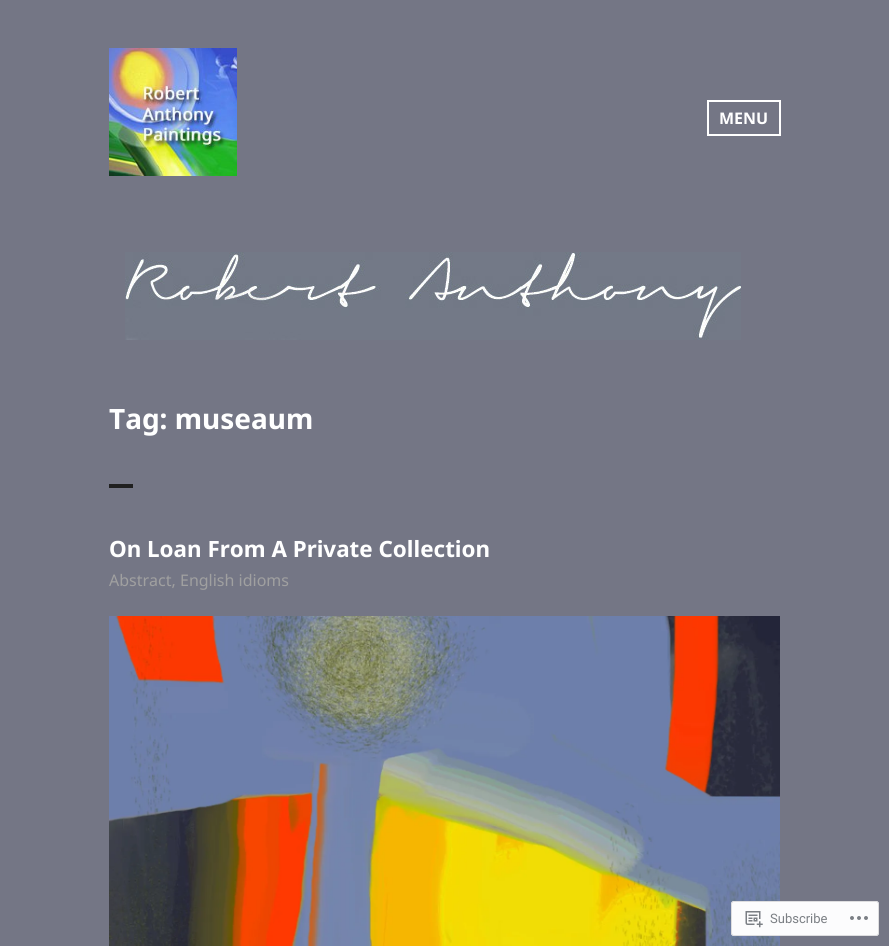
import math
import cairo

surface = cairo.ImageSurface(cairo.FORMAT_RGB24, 889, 946)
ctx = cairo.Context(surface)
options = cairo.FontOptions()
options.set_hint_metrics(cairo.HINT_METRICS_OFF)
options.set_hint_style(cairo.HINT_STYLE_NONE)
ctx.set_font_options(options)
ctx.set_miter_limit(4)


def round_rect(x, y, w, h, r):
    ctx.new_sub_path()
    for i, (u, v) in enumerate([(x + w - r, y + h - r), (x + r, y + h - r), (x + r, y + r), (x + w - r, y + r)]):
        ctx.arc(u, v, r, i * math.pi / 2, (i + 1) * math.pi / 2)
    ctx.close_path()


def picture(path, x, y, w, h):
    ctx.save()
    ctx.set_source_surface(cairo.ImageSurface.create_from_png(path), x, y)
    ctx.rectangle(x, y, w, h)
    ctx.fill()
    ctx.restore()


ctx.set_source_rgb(0.455, 0.463, 0.522)
ctx.paint()
picture("img1.png", 109, 48, 128, 128)
ctx.rectangle(708, 101, 72, 34)
ctx.set_source_rgb(1, 1, 1)
ctx.stroke()
ctx.select_font_face("Noto Sans", cairo.FONT_SLANT_NORMAL, cairo.FONT_WEIGHT_BOLD)
ctx.set_font_size(16)
ctx.move_to(719, 124)
ctx.show_text("MENU")
picture("img2.png", 125, 252, 616, 88)
ctx.set_font_size(28)
ctx.move_to(109, 429)
ctx.show_text("Tag: museaum")
ctx.set_source_rgb(0.125, 0.125, 0.125)
ctx.rectangle(109, 484, 24, 4)
ctx.fill()
ctx.set_font_size(22.4)
ctx.set_source_rgb(1, 1, 1)
ctx.move_to(109, 557)
ctx.show_text("On Loan From A Private Collection")
ctx.select_font_face("Noto Sans")
ctx.set_font_size(16)
ctx.set_source_rgb(0.627, 0.627, 0.627)
ctx.move_to(109, 586)
ctx.show_text("Abstract, English idioms")
picture("img3.png", 109, 616, 671, 330)
ctx.set_source_rgba(1, 1, 1, 0.98)
round_rect(731, 901, 148, 35, 3)
ctx.fill()
round_rect(731.5, 901.5, 147, 34, 2.5)
ctx.set_source_rgba(0.863, 0.863, 0.871, 0.98)
ctx.set_line_width(1)
ctx.stroke()
picture("img4.png", 745, 911, 18, 17)
ctx.select_font_face("Roboto")
ctx.set_font_size(13)
ctx.set_source_rgb(0.482, 0.498, 0.518)
ctx.move_to(770, 923)
ctx.show_text("Subscribe")
picture("img5.png", 850, 916, 18, 4)
surface.write_to_png("page.png")
